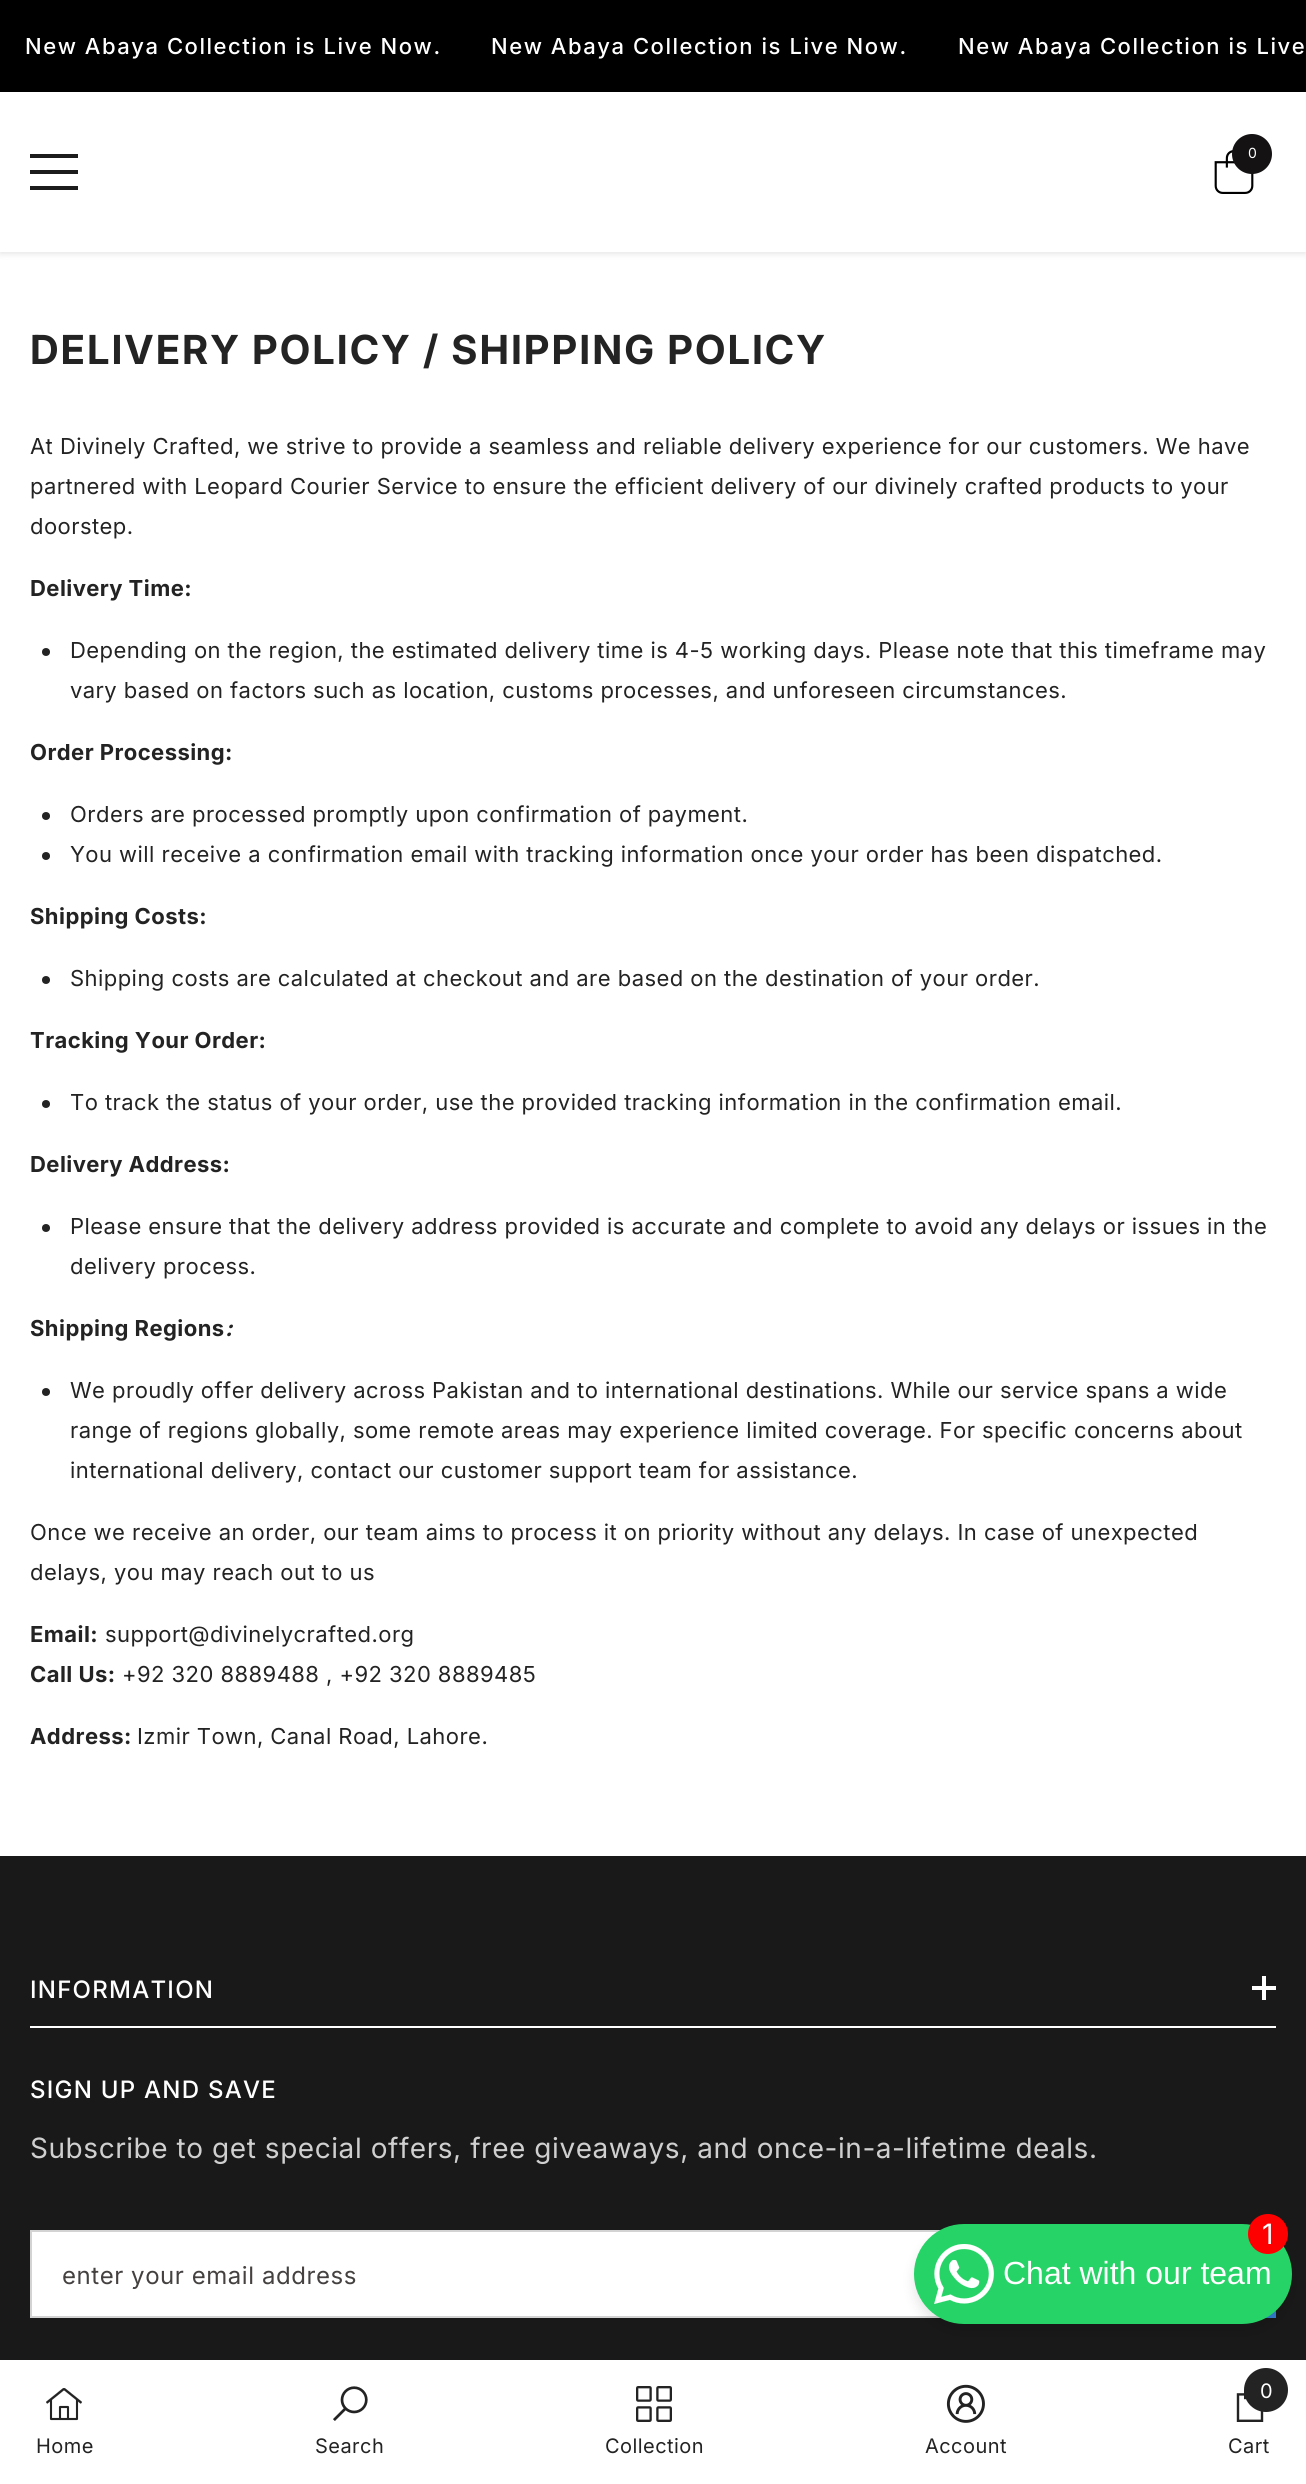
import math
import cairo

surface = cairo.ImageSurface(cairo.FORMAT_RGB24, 1306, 2484)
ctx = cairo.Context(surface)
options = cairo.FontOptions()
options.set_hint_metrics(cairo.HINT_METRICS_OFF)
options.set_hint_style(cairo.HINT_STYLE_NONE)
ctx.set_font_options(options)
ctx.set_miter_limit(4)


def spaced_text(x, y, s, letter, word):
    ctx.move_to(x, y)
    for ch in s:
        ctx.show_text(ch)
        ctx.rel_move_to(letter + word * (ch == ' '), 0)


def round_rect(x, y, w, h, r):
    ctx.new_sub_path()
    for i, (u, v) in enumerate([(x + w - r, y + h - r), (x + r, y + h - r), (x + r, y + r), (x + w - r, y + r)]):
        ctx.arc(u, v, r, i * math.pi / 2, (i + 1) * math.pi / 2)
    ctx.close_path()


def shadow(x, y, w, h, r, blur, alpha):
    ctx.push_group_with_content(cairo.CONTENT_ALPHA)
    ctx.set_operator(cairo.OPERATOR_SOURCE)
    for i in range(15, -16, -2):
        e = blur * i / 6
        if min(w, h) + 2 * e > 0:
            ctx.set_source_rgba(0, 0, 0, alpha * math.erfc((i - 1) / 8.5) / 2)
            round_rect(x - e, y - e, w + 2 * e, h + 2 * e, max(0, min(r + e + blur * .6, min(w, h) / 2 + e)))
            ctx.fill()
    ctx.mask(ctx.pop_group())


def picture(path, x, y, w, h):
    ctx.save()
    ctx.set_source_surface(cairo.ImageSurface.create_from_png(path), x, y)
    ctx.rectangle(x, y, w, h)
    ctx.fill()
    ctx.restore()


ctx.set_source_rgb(1, 1, 1)
ctx.paint()
ctx.set_source_rgb(0, 0, 0)
ctx.rectangle(0, 0, 1306, 92)
ctx.fill()
ctx.select_font_face("Inter Medium")
ctx.set_font_size(22)
ctx.set_source_rgb(1, 1, 1)
spaced_text(25, 54, "New Abaya Collection is Live Now.", 1.55, 0)
spaced_text(491, 54, "New Abaya Collection is Live Now.", 1.55, 0)
spaced_text(958, 54, "New Abaya Collection is Live", 1.55, 0)
ctx.save()
ctx.set_fill_rule(cairo.FILL_RULE_EVEN_ODD)
ctx.new_path()
ctx.move_to(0, 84)
ctx.line_to(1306, 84)
ctx.line_to(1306, 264)
ctx.line_to(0, 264)
ctx.close_path()
ctx.move_to(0, 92)
ctx.line_to(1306, 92)
ctx.line_to(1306, 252)
ctx.line_to(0, 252)
ctx.close_path()
ctx.clip()
ctx.set_source_rgb(0, 0, 0)
shadow(0, 94, 1306, 160, 0, 3, 0.1)
ctx.restore()
ctx.set_source_rgb(0.114, 0.11, 0.11)
ctx.rectangle(30, 170, 48, 4)
ctx.fill()
ctx.rectangle(30, 154, 48, 4)
ctx.fill()
ctx.rectangle(30, 186, 48, 4)
ctx.fill()
picture("img1.png", 1214, 150, 40, 44)
ctx.set_source_rgb(0.082, 0.071, 0.071)
ctx.arc(1252, 154, 20, 0, 2 * math.pi)
ctx.fill()
ctx.select_font_face("Inter")
ctx.set_font_size(14)
ctx.set_source_rgb(1, 1, 1)
ctx.move_to(1248, 158)
ctx.show_text("0")
ctx.select_font_face("Inter", cairo.FONT_SLANT_NORMAL, cairo.FONT_WEIGHT_BOLD)
ctx.set_font_size(40)
ctx.set_source_rgb(0.137, 0.137, 0.137)
spaced_text(30, 364, "DELIVERY POLICY / SHIPPING POLICY", 2, 0)
ctx.select_font_face("Inter")
ctx.set_font_size(22)
spaced_text(30, 454, "At Divinely Crafted, we strive to provide a seamless and reliable delivery experience for our customers. We have", 0.44, 0)
spaced_text(30, 494, "partnered with Leopard Courier Service to ensure the efficient delivery of our divinely crafted products to your", 0.44, 0)
spaced_text(30, 534, "doorstep.", 0.44, 0)
ctx.select_font_face("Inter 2", cairo.FONT_SLANT_NORMAL, cairo.FONT_WEIGHT_BOLD)
spaced_text(30, 596, "Delivery Time:", 0.44, 0)
ctx.new_path()
ctx.arc(46, 652, 4, 0, 2 * math.pi)
ctx.fill()
ctx.select_font_face("Inter")
spaced_text(70, 658, "Depending on the region, the estimated delivery time is 4-5 working days. Please note that this timeframe may", 0.44, 0)
spaced_text(70, 698, "vary based on factors such as location, customs processes, and unforeseen circumstances.", 0.44, 0)
ctx.select_font_face("Inter 2", cairo.FONT_SLANT_NORMAL, cairo.FONT_WEIGHT_BOLD)
spaced_text(30, 760, "Order Processing:", 0.44, 0)
ctx.new_path()
ctx.arc(46, 816, 4, 0, 2 * math.pi)
ctx.fill()
ctx.select_font_face("Inter")
spaced_text(70, 822, "Orders are processed promptly upon confirmation of payment.", 0.44, 0)
ctx.new_path()
ctx.arc(46, 856, 4, 0, 2 * math.pi)
ctx.fill()
spaced_text(70, 862, "You will receive a confirmation email with tracking information once your order has been dispatched.", 0.44, 0)
ctx.select_font_face("Inter 2", cairo.FONT_SLANT_NORMAL, cairo.FONT_WEIGHT_BOLD)
spaced_text(30, 924, "Shipping Costs:", 0.44, 0)
ctx.new_path()
ctx.arc(46, 980, 4, 0, 2 * math.pi)
ctx.fill()
ctx.select_font_face("Inter")
spaced_text(70, 986, "Shipping costs are calculated at checkout and are based on the destination of your order.", 0.44, 0)
ctx.select_font_face("Inter 2", cairo.FONT_SLANT_NORMAL, cairo.FONT_WEIGHT_BOLD)
spaced_text(30, 1048, "Tracking Your Order:", 0.44, 0)
ctx.new_path()
ctx.arc(46, 1104, 4, 0, 2 * math.pi)
ctx.fill()
ctx.select_font_face("Inter")
spaced_text(70, 1110, "To track the status of your order, use the provided tracking information in the confirmation email.", 0.44, 0)
ctx.select_font_face("Inter 2", cairo.FONT_SLANT_NORMAL, cairo.FONT_WEIGHT_BOLD)
spaced_text(30, 1172, "Delivery Address:", 0.44, 0)
ctx.new_path()
ctx.arc(46, 1228, 4, 0, 2 * math.pi)
ctx.fill()
ctx.select_font_face("Inter")
spaced_text(70, 1234, "Please ensure that the delivery address provided is accurate and complete to avoid any delays or issues in the", 0.44, 0)
spaced_text(70, 1274, "delivery process.", 0.44, 0)
ctx.select_font_face("Inter 2", cairo.FONT_SLANT_NORMAL, cairo.FONT_WEIGHT_BOLD)
spaced_text(30, 1336, "Shipping Regions", 0.44, 0)
ctx.select_font_face("Inter", cairo.FONT_SLANT_ITALIC, cairo.FONT_WEIGHT_BOLD)
spaced_text(225, 1336, ":", 0.44, 0)
ctx.new_path()
ctx.arc(46, 1392, 4, 0, 2 * math.pi)
ctx.fill()
ctx.select_font_face("Inter")
spaced_text(70, 1398, "We proudly offer delivery across Pakistan and to international destinations. While our service spans a wide", 0.44, 0)
spaced_text(70, 1438, "range of regions globally, some remote areas may experience limited coverage. For specific concerns about", 0.44, 0)
spaced_text(70, 1478, "international delivery, contact our customer support team for assistance.", 0.44, 0)
spaced_text(30, 1540, "Once we receive an order, our team aims to process it on priority without any delays. In case of unexpected", 0.44, 0)
spaced_text(30, 1580, "delays, you may reach out to us", 0.44, 0)
ctx.select_font_face("Inter 2", cairo.FONT_SLANT_NORMAL, cairo.FONT_WEIGHT_BOLD)
spaced_text(30, 1642, "Email:", 0.44, 0)
ctx.select_font_face("Inter")
spaced_text(105, 1642, "support@divinelycrafted.org", 0.44, 0)
ctx.select_font_face("Inter 2", cairo.FONT_SLANT_NORMAL, cairo.FONT_WEIGHT_BOLD)
spaced_text(30, 1682, "Call Us:", 0.44, 0)
ctx.select_font_face("Inter")
spaced_text(122, 1682, "+92 320 8889488 , +92 320 8889485", 0.44, 0)
ctx.select_font_face("Inter 2", cairo.FONT_SLANT_NORMAL, cairo.FONT_WEIGHT_BOLD)
spaced_text(30, 1744, "Address:", 0.44, 0)
ctx.select_font_face("Inter")
spaced_text(137, 1744, "Izmir Town, Canal Road, Lahore.", 0.44, 0)
ctx.set_source_rgb(0.098, 0.098, 0.098)
ctx.rectangle(0, 1856, 1306, 504)
ctx.fill()
ctx.set_source_rgb(1, 1, 1)
ctx.rectangle(30, 2026, 1246, 2)
ctx.fill()
ctx.select_font_face("Inter Medium")
ctx.set_font_size(24)
spaced_text(30, 1998, "INFORMATION", 1.25, 0)
ctx.rectangle(1262, 1976, 4, 24)
ctx.fill()
ctx.rectangle(1252, 1986, 24, 4)
ctx.fill()
spaced_text(30, 2098, "SIGN UP AND SAVE", 1.25, 0)
ctx.select_font_face("Inter")
ctx.set_font_size(28)
ctx.set_source_rgb(0.812, 0.812, 0.812)
spaced_text(30, 2158, "Subscribe to get special offers, free giveaways, and once-in-a-lifetime deals.", 0.55, 0)
ctx.set_source_rgb(1, 1, 1)
ctx.rectangle(32, 2232, 905, 84)
ctx.fill()
ctx.rectangle(31, 2231, 924, 86)
ctx.set_source_rgb(0.827, 0.827, 0.827)
ctx.stroke()
ctx.set_font_size(24)
ctx.set_source_rgb(0.271, 0.255, 0.255)
spaced_text(62, 2284, "enter your email address", 0.55, 0)
ctx.set_source_rgb(0.2, 0.498, 0.827)
ctx.rectangle(1265, 2310, 11, 8)
ctx.fill()
picture("img2.png", 46, 2388, 36, 33)
ctx.set_font_size(20)
ctx.set_source_rgb(0.137, 0.137, 0.137)
spaced_text(36, 2453, "Home", 0.44, 0)
picture("img3.png", 333, 2386, 35, 35)
spaced_text(315, 2453, "Search", 0.44, 0)
picture("img4.png", 636, 2386, 36, 36)
spaced_text(605, 2453, "Collection", 0.44, 0)
picture("img5.png", 946, 2384, 39, 39)
spaced_text(925, 2453, "Account", 0.44, 0)
picture("img6.png", 1236, 2388, 28, 34)
ctx.arc(1266, 2390, 22, 0, 2 * math.pi)
ctx.fill()
ctx.set_source_rgb(1, 1, 1)
ctx.move_to(1260, 2398)
ctx.show_text("0")
ctx.set_source_rgb(0.137, 0.137, 0.137)
spaced_text(1228, 2453, "Cart", 0.44, 0)
ctx.set_source_rgb(0, 0, 0)
shadow(914, 2232, 378, 100, 50, 6, 0.1)
ctx.set_source_rgb(0.145, 0.827, 0.4)
round_rect(914, 2224, 378, 100, 50)
ctx.fill()
ctx.set_source_rgb(1, 0, 0)
ctx.arc(1268, 2234, 20, 0, 2 * math.pi)
ctx.fill()
ctx.set_font_size(28)
ctx.set_source_rgb(1, 1, 1)
spaced_text(1262, 2244, "1", 0.44, 0)
picture("img7.png", 934, 2244, 60, 60)
ctx.select_font_face("Liberation Sans")
ctx.set_font_size(32)
ctx.move_to(1003, 2284)
ctx.show_text("Chat with our team")
surface.write_to_png("page.png")
